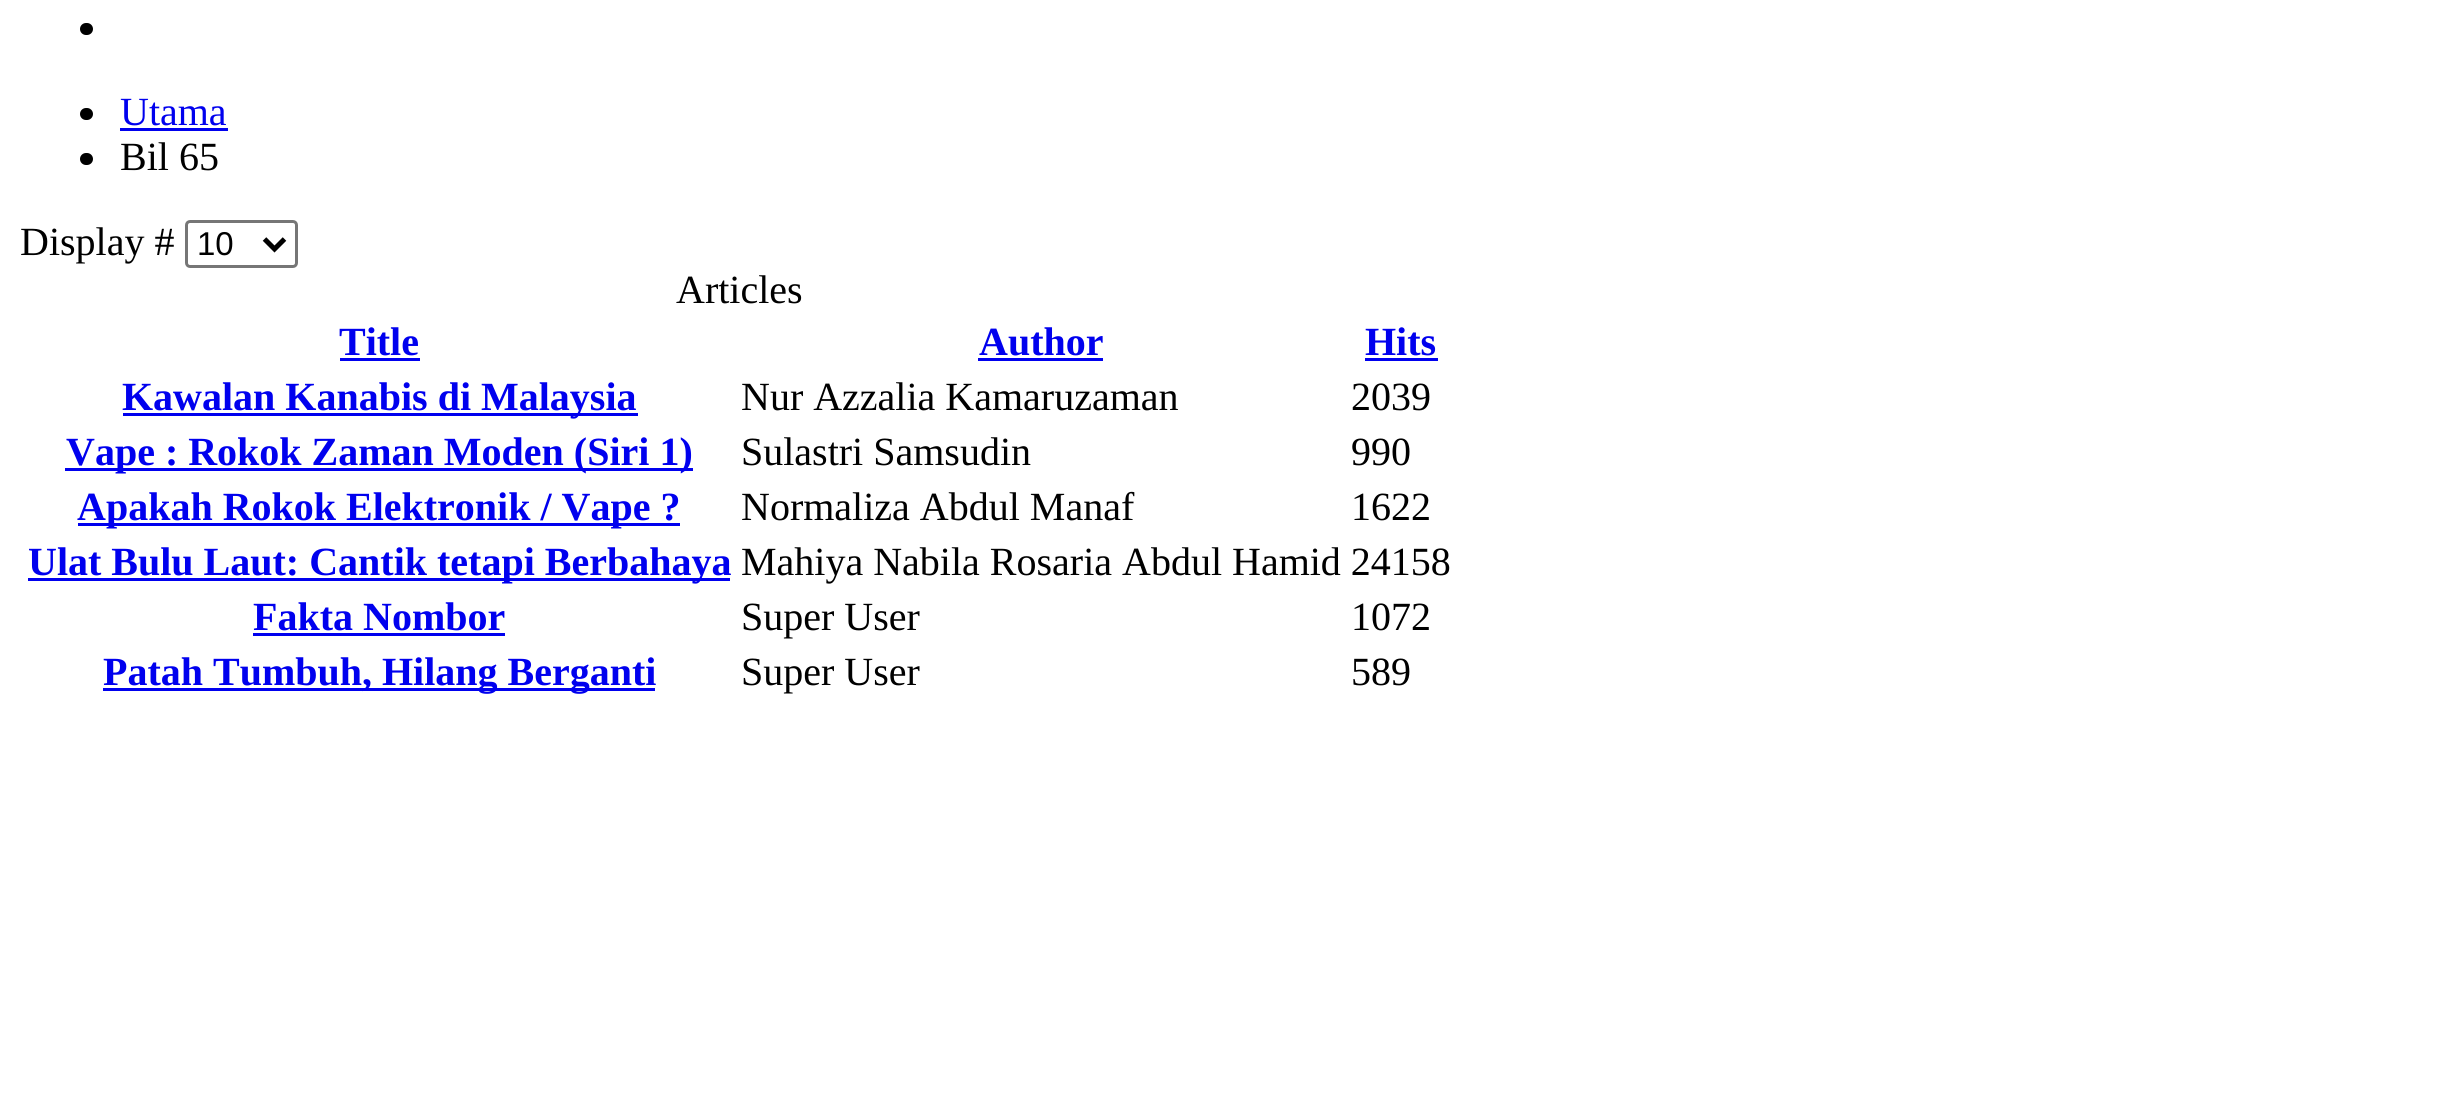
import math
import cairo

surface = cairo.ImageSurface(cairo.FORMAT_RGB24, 2440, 1112)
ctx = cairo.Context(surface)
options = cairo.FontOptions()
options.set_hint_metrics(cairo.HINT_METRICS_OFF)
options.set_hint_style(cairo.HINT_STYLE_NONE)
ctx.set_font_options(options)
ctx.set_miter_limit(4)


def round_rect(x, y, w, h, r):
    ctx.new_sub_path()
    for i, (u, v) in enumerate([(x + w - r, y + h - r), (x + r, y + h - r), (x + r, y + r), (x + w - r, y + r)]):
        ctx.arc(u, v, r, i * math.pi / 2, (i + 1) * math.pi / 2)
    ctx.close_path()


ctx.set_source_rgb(1, 1, 1)
ctx.paint()
ctx.set_source_rgb(0, 0, 0)
round_rect(80, 23, 13, 12, 6)
ctx.fill()
round_rect(80, 108, 13, 12, 6)
ctx.fill()
ctx.select_font_face("Liberation Serif")
ctx.set_font_size(40)
ctx.set_source_rgb(0, 0, 0.933)
ctx.move_to(120, 125)
ctx.show_text("Utama")
ctx.rectangle(120, 128, 108, 3)
ctx.fill()
ctx.set_source_rgb(0, 0, 0)
round_rect(80, 153, 13, 12, 6)
ctx.fill()
ctx.move_to(120, 170)
ctx.show_text("Bil 65")
ctx.move_to(20, 255)
ctx.show_text("Display #")
round_rect(186.5, 221.5, 110, 45, 3.5)
ctx.set_source_rgb(0.463, 0.463, 0.463)
ctx.set_line_width(3)
ctx.stroke()
ctx.new_path()
ctx.move_to(264.5, 239)
ctx.line_to(274.5, 249)
ctx.line_to(284.5, 239)
ctx.set_source_rgb(0, 0, 0)
ctx.set_line_width(5)
ctx.stroke()
ctx.select_font_face("Liberation Sans")
ctx.set_font_size(33)
ctx.move_to(197, 255)
ctx.show_text("10")
ctx.select_font_face("Liberation Serif")
ctx.set_font_size(40)
ctx.move_to(676, 303)
ctx.show_text("Articles")
ctx.select_font_face("Liberation Serif", cairo.FONT_SLANT_NORMAL, cairo.FONT_WEIGHT_BOLD)
ctx.set_source_rgb(0, 0, 0.933)
ctx.move_to(339, 355)
ctx.show_text("Title")
ctx.rectangle(340, 358, 80, 3)
ctx.fill()
ctx.move_to(979, 355)
ctx.show_text("Author")
ctx.rectangle(978, 358, 125, 3)
ctx.fill()
ctx.move_to(1365, 355)
ctx.show_text("Hits")
ctx.rectangle(1365, 358, 73, 3)
ctx.fill()
ctx.rectangle(123, 413, 515, 3)
ctx.fill()
ctx.move_to(122, 410)
ctx.show_text("Kawalan Kanabis di Malaysia")
ctx.select_font_face("Liberation Serif")
ctx.set_source_rgb(0, 0, 0)
ctx.move_to(741, 410)
ctx.show_text("Nur Azzalia Kamaruzaman")
ctx.move_to(1351, 410)
ctx.show_text("2039")
ctx.set_source_rgb(0, 0, 0.933)
ctx.rectangle(65, 468, 628, 3)
ctx.fill()
ctx.select_font_face("Liberation Serif", cairo.FONT_SLANT_NORMAL, cairo.FONT_WEIGHT_BOLD)
ctx.move_to(66, 465)
ctx.show_text("Vape : Rokok Zaman Moden (Siri 1)")
ctx.select_font_face("Liberation Serif")
ctx.set_source_rgb(0, 0, 0)
ctx.move_to(741, 465)
ctx.show_text("Sulastri Samsudin")
ctx.move_to(1351, 465)
ctx.show_text("990")
ctx.set_source_rgb(0, 0, 0.933)
ctx.rectangle(78, 523, 602, 3)
ctx.fill()
ctx.select_font_face("Liberation Serif", cairo.FONT_SLANT_NORMAL, cairo.FONT_WEIGHT_BOLD)
ctx.move_to(77, 520)
ctx.show_text("Apakah Rokok Elektronik / Vape ?")
ctx.select_font_face("Liberation Serif")
ctx.set_source_rgb(0, 0, 0)
ctx.move_to(741, 520)
ctx.show_text("Normaliza Abdul Manaf")
ctx.move_to(1351, 520)
ctx.show_text("1622")
ctx.set_source_rgb(0, 0, 0.933)
ctx.rectangle(28, 578, 702, 3)
ctx.fill()
ctx.select_font_face("Liberation Serif", cairo.FONT_SLANT_NORMAL, cairo.FONT_WEIGHT_BOLD)
ctx.move_to(28, 575)
ctx.show_text("Ulat Bulu Laut: Cantik tetapi Berbahaya")
ctx.select_font_face("Liberation Serif")
ctx.set_source_rgb(0, 0, 0)
ctx.move_to(741, 575)
ctx.show_text("Mahiya Nabila Rosaria Abdul Hamid 24158")
ctx.select_font_face("Liberation Serif", cairo.FONT_SLANT_NORMAL, cairo.FONT_WEIGHT_BOLD)
ctx.set_source_rgb(0, 0, 0.933)
ctx.move_to(253, 630)
ctx.show_text("Fakta Nombor")
ctx.rectangle(253, 633, 252, 3)
ctx.fill()
ctx.select_font_face("Liberation Serif")
ctx.set_source_rgb(0, 0, 0)
ctx.move_to(741, 630)
ctx.show_text("Super User")
ctx.move_to(1351, 630)
ctx.show_text("1072")
ctx.set_source_rgb(0, 0, 0.933)
ctx.rectangle(103, 688, 552, 3)
ctx.fill()
ctx.select_font_face("Liberation Serif", cairo.FONT_SLANT_NORMAL, cairo.FONT_WEIGHT_BOLD)
ctx.move_to(103, 685)
ctx.show_text("Patah Tumbuh, Hilang Berganti")
ctx.select_font_face("Liberation Serif")
ctx.set_source_rgb(0, 0, 0)
ctx.move_to(741, 685)
ctx.show_text("Super User")
ctx.move_to(1351, 685)
ctx.show_text("589")
surface.write_to_png("page.png")
